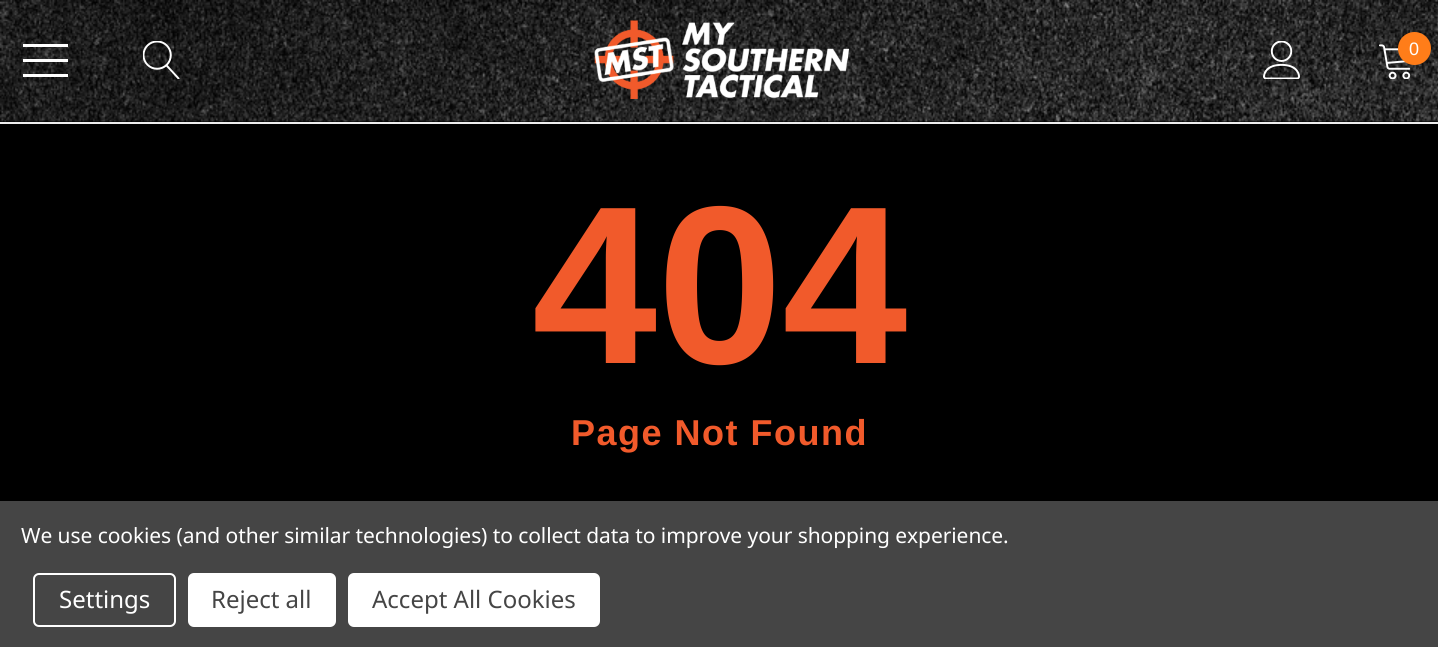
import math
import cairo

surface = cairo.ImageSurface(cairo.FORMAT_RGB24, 1438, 647)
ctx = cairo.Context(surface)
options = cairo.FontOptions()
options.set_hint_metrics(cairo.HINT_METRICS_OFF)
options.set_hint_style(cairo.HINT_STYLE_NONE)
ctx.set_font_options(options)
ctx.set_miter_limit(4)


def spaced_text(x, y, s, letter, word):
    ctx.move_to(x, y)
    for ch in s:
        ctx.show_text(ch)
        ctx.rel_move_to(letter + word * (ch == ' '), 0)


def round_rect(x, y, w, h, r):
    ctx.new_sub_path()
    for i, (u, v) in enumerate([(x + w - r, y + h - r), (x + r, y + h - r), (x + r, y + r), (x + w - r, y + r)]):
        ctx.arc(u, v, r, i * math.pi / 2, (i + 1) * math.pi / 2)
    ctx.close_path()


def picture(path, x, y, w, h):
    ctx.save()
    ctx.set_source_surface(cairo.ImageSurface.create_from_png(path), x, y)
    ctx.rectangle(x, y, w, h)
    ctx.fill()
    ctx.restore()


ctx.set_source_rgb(0, 0, 0)
ctx.paint()
picture("img1.png", 0, 0, 1438, 122)
ctx.set_source_rgb(1, 1, 1)
ctx.rectangle(23, 59, 45, 3)
ctx.fill()
ctx.rectangle(23, 44, 45, 3)
ctx.fill()
ctx.rectangle(23, 74, 45, 3)
ctx.fill()
picture("img2.png", 143, 41, 37, 38)
picture("img3.png", 594, 20, 256, 79)
picture("img4.png", 1263, 41, 38, 38)
picture("img5.png", 1379, 44, 32, 35)
ctx.set_source_rgb(1, 0.49, 0.098)
ctx.arc(1414.5, 48.5, 16.5, 0, 2 * math.pi)
ctx.fill()
ctx.select_font_face("Arimo")
ctx.set_font_size(18)
ctx.set_source_rgb(1, 1, 1)
ctx.move_to(1409, 55)
ctx.show_text("0")
ctx.set_source_rgb(0.933, 0.933, 0.933)
ctx.rectangle(0, 122, 1438, 2)
ctx.fill()
ctx.select_font_face("Arimo", cairo.FONT_SLANT_NORMAL, cairo.FONT_WEIGHT_BOLD)
ctx.set_font_size(225)
ctx.set_source_rgb(0.945, 0.353, 0.169)
ctx.move_to(532, 363)
ctx.show_text("404")
ctx.set_font_size(36)
spaced_text(571, 445, "Page Not Found", 1.5, 0)
ctx.set_source_rgb(0.271, 0.271, 0.271)
ctx.rectangle(0, 501, 1438, 146)
ctx.fill()
ctx.select_font_face("Noto Sans")
ctx.set_font_size(21)
ctx.set_source_rgb(1, 1, 1)
spaced_text(21, 543, "We use cookies (and other similar technologies) to collect data to improve your shopping experience.", -0.08, 0)
round_rect(34, 574, 141, 52, 5)
ctx.stroke()
ctx.set_font_size(24)
ctx.move_to(59, 608)
ctx.show_text("Settings")
round_rect(188, 573, 148, 54, 6)
ctx.fill()
ctx.set_source_rgb(0.271, 0.271, 0.271)
ctx.move_to(211, 608)
ctx.show_text("Reject all")
ctx.set_source_rgb(1, 1, 1)
round_rect(348, 573, 252, 54, 6)
ctx.fill()
ctx.set_source_rgb(0.271, 0.271, 0.271)
ctx.move_to(372, 608)
ctx.show_text("Accept All Cookies")
surface.write_to_png("page.png")
